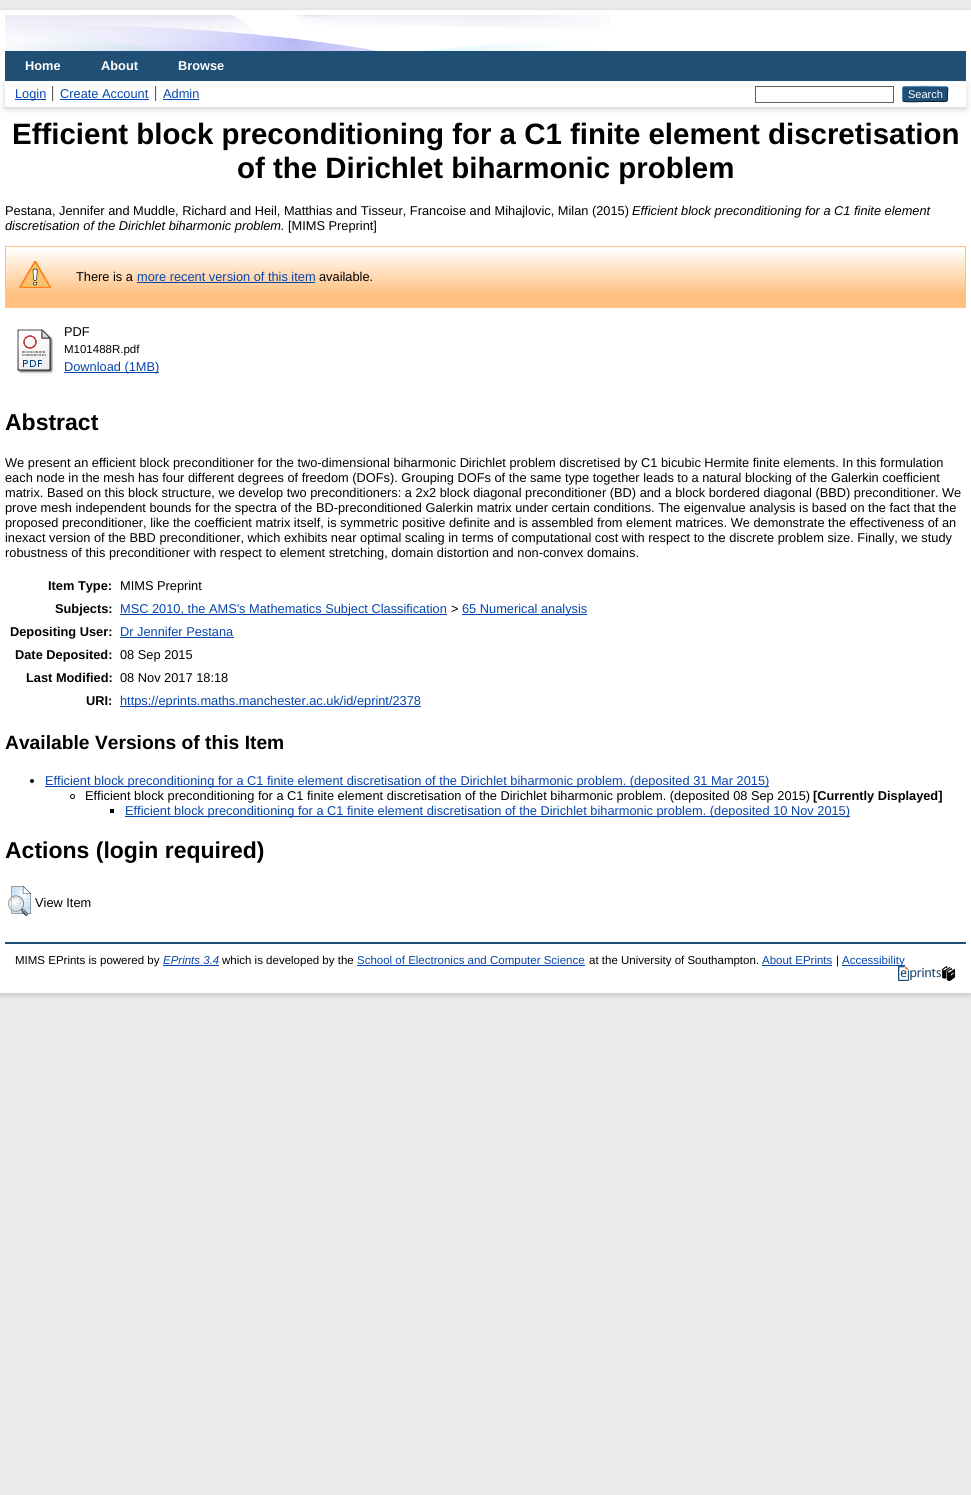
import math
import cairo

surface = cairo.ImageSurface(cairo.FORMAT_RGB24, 971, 1495)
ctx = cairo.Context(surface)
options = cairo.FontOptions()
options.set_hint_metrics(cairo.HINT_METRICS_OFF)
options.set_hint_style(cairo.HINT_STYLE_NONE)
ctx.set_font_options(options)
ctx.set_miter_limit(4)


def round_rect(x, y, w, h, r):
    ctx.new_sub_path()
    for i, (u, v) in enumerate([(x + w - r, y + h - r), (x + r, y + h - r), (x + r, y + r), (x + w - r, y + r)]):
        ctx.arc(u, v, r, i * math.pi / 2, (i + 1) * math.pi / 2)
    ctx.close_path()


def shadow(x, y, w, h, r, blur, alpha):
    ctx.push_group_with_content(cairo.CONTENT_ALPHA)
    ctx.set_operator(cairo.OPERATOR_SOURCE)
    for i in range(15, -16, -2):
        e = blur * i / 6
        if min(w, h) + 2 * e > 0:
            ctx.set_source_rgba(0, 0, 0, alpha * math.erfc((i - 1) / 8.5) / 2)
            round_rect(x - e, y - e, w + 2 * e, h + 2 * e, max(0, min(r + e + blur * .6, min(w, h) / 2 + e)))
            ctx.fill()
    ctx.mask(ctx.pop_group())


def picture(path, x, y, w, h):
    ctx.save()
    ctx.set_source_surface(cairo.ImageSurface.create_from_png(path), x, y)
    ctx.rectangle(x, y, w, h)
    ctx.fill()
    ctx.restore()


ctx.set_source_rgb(0.918, 0.918, 0.918)
ctx.paint()
ctx.set_source_rgb(0.392, 0.392, 0.392)
shadow(0, 12, 971, 983, 0, 3, 0.3)
ctx.set_source_rgb(1, 1, 1)
ctx.rectangle(0, 10, 971, 983)
ctx.fill()
picture("img1.png", 5, 15, 605, 36)
ctx.set_source_rgb(0.125, 0.31, 0.463)
ctx.rectangle(5, 51, 961, 30)
ctx.fill()
ctx.select_font_face("Liberation Sans", cairo.FONT_SLANT_NORMAL, cairo.FONT_WEIGHT_BOLD)
ctx.set_font_size(12.8)
ctx.set_source_rgb(1, 1, 1)
ctx.move_to(25, 70)
ctx.show_text("Home")
ctx.move_to(101, 70)
ctx.show_text("About")
ctx.move_to(178, 70)
ctx.show_text("Browse")
ctx.set_source_rgb(0.392, 0.392, 0.392)
shadow(5, 84, 961, 25, 0, 3, 0.3)
ctx.set_source_rgb(1, 1, 1)
ctx.rectangle(5, 82, 961, 25)
ctx.fill()
ctx.set_source_rgb(0.376, 0.376, 0.376)
ctx.rectangle(52, 86, 1, 15)
ctx.fill()
ctx.set_source_rgb(0.024, 0.271, 0.678)
ctx.rectangle(15, 99, 31, 1)
ctx.fill()
ctx.select_font_face("Liberation Sans")
ctx.move_to(15, 98)
ctx.show_text("Login")
ctx.set_source_rgb(0.376, 0.376, 0.376)
ctx.rectangle(155, 86, 1, 15)
ctx.fill()
ctx.set_source_rgb(0.91, 0.91, 0.91)
ctx.rectangle(53, 86, 1, 15)
ctx.fill()
ctx.set_source_rgb(0.024, 0.271, 0.678)
ctx.move_to(60, 98)
ctx.show_text("Create Account")
ctx.rectangle(60, 99, 89, 1)
ctx.fill()
ctx.set_source_rgb(0.91, 0.91, 0.91)
ctx.rectangle(156, 86, 1, 15)
ctx.fill()
ctx.set_source_rgb(0.024, 0.271, 0.678)
ctx.move_to(163, 98)
ctx.show_text("Admin")
ctx.rectangle(163, 99, 36, 1)
ctx.fill()
ctx.rectangle(755.5, 86.5, 138, 16)
ctx.set_source_rgb(0.376, 0.376, 0.376)
ctx.set_line_width(1)
ctx.stroke()
ctx.set_source_rgb(0.122, 0.31, 0.463)
round_rect(902, 86, 46, 16, 3)
ctx.fill()
ctx.new_path()
ctx.move_to(903, 87)
ctx.curve_to(904.5, 86, 945.5, 86, 947, 87)
ctx.set_source_rgb(0.357, 0.592, 0.78)
ctx.stroke()
ctx.new_path()
ctx.move_to(947, 87)
ctx.curve_to(948.5, 89, 947.5, 92, 947.5, 94)
ctx.curve_to(947.5, 103, 948, 101.5, 938.5, 101.5)
ctx.line_to(925, 101.5)
ctx.curve_to(921.5, 101.5, 905, 102.5, 903, 101)
ctx.set_source_rgb(0.051, 0.129, 0.192)
ctx.stroke()
ctx.new_path()
ctx.move_to(903, 101)
ctx.curve_to(902, 99.5, 902.5, 95.5, 902.5, 94)
ctx.curve_to(902.5, 92.5, 902, 88.5, 903, 87)
ctx.set_source_rgb(0.322, 0.529, 0.702)
ctx.stroke()
ctx.set_font_size(11)
ctx.set_source_rgb(1, 1, 1)
ctx.move_to(908, 98)
ctx.show_text("Search")
ctx.select_font_face("Liberation Sans", cairo.FONT_SLANT_NORMAL, cairo.FONT_WEIGHT_BOLD)
ctx.set_font_size(29.45)
ctx.set_source_rgb(0, 0, 0)
ctx.move_to(12, 144)
ctx.show_text("Efficient block preconditioning for a C1 finite element discretisation")
ctx.move_to(237, 178)
ctx.show_text("of the Dirichlet biharmonic problem")
ctx.select_font_face("Liberation Sans")
ctx.set_font_size(12.8)
ctx.move_to(5, 215)
ctx.show_text("Pestana, Jennifer and Muddle, Richard and Heil, Matthias and Tisseur, Francoise and Mihajlovic, Milan (2015)")
ctx.select_font_face("Liberation Sans", cairo.FONT_SLANT_ITALIC)
ctx.move_to(632, 215)
ctx.show_text("Efficient block preconditioning for a C1 finite element")
ctx.move_to(5, 230)
ctx.show_text("discretisation of the Dirichlet biharmonic problem.")
ctx.select_font_face("Liberation Sans")
ctx.move_to(288, 230)
ctx.show_text("[MIMS Preprint]")
ctx.set_source_rgb(1, 0.753, 0.502)
ctx.rectangle(6, 248, 959, 59)
ctx.fill()
picture("img2.png", 6, 247, 959, 47)
ctx.rectangle(5.5, 246.5, 960, 61)
ctx.stroke()
picture("img3.png", 19, 261, 32, 27)
ctx.set_source_rgb(0, 0, 0)
ctx.move_to(76, 281)
ctx.show_text("There is a")
ctx.set_source_rgb(0.024, 0.271, 0.678)
ctx.move_to(137, 281)
ctx.show_text("more recent version of this item")
ctx.rectangle(137, 282, 178, 1)
ctx.fill()
ctx.set_source_rgb(0, 0, 0)
ctx.move_to(319, 281)
ctx.show_text("available.")
picture("img4.png", 17, 329, 37, 45)
ctx.move_to(64, 336)
ctx.show_text("PDF")
ctx.set_font_size(11.5)
ctx.move_to(64, 353)
ctx.show_text("M101488R.pdf")
ctx.set_source_rgb(0.024, 0.271, 0.678)
ctx.rectangle(64, 372, 95, 1)
ctx.fill()
ctx.set_font_size(12.8)
ctx.move_to(64, 371)
ctx.show_text("Download (1MB)")
ctx.select_font_face("Liberation Sans", cairo.FONT_SLANT_NORMAL, cairo.FONT_WEIGHT_BOLD)
ctx.set_font_size(23)
ctx.set_source_rgb(0, 0, 0)
ctx.move_to(5, 430)
ctx.show_text("Abstract")
ctx.select_font_face("Liberation Sans")
ctx.set_font_size(12.8)
ctx.move_to(5, 467)
ctx.show_text("We present an efficient block preconditioner for the two-dimensional biharmonic Dirichlet problem discretised by C1 bicubic Hermite finite elements. In this formulation")
ctx.move_to(5, 482)
ctx.show_text("each node in the mesh has four different degrees of freedom (DOFs). Grouping DOFs of the same type together leads to a natural blocking of the Galerkin coefficient")
ctx.move_to(5, 497)
ctx.show_text("matrix. Based on this block structure, we develop two preconditioners: a 2x2 block diagonal preconditioner (BD) and a block bordered diagonal (BBD) preconditioner. We")
ctx.move_to(5, 512)
ctx.show_text("prove mesh independent bounds for the spectra of the BD-preconditioned Galerkin matrix under certain conditions. The eigenvalue analysis is based on the fact that the")
ctx.move_to(5, 527)
ctx.show_text("proposed preconditioner, like the coefficient matrix itself, is symmetric positive definite and is assembled from element matrices. We demonstrate the effectiveness of an")
ctx.move_to(5, 542)
ctx.show_text("inexact version of the BBD preconditioner, which exhibits near optimal scaling in terms of computational cost with respect to the discrete problem size. Finally, we study")
ctx.move_to(5, 557)
ctx.show_text("robustness of this preconditioner with respect to element stretching, domain distortion and non-convex domains.")
ctx.select_font_face("Liberation Sans", cairo.FONT_SLANT_NORMAL, cairo.FONT_WEIGHT_BOLD)
ctx.move_to(48, 590)
ctx.show_text("Item Type:")
ctx.select_font_face("Liberation Sans")
ctx.move_to(120, 590)
ctx.show_text("MIMS Preprint")
ctx.select_font_face("Liberation Sans", cairo.FONT_SLANT_NORMAL, cairo.FONT_WEIGHT_BOLD)
ctx.move_to(55, 613)
ctx.show_text("Subjects:")
ctx.set_source_rgb(0.024, 0.271, 0.678)
ctx.rectangle(120, 614, 327, 1)
ctx.fill()
ctx.select_font_face("Liberation Sans")
ctx.move_to(120, 613)
ctx.show_text("MSC 2010, the AMS's Mathematics Subject Classification")
ctx.set_source_rgb(0, 0, 0)
ctx.move_to(451, 613)
ctx.show_text(">")
ctx.set_source_rgb(0.024, 0.271, 0.678)
ctx.rectangle(462, 614, 125, 1)
ctx.fill()
ctx.move_to(462, 613)
ctx.show_text("65 Numerical analysis")
ctx.select_font_face("Liberation Sans", cairo.FONT_SLANT_NORMAL, cairo.FONT_WEIGHT_BOLD)
ctx.set_source_rgb(0, 0, 0)
ctx.move_to(10, 636)
ctx.show_text("Depositing User:")
ctx.select_font_face("Liberation Sans")
ctx.set_source_rgb(0.024, 0.271, 0.678)
ctx.move_to(120, 636)
ctx.show_text("Dr Jennifer Pestana")
ctx.rectangle(120, 637, 114, 1)
ctx.fill()
ctx.select_font_face("Liberation Sans", cairo.FONT_SLANT_NORMAL, cairo.FONT_WEIGHT_BOLD)
ctx.set_source_rgb(0, 0, 0)
ctx.move_to(15, 659)
ctx.show_text("Date Deposited:")
ctx.select_font_face("Liberation Sans")
ctx.move_to(120, 659)
ctx.show_text("08 Sep 2015")
ctx.select_font_face("Liberation Sans", cairo.FONT_SLANT_NORMAL, cairo.FONT_WEIGHT_BOLD)
ctx.move_to(26, 682)
ctx.show_text("Last Modified:")
ctx.select_font_face("Liberation Sans")
ctx.move_to(120, 682)
ctx.show_text("08 Nov 2017 18:18")
ctx.select_font_face("Liberation Sans", cairo.FONT_SLANT_NORMAL, cairo.FONT_WEIGHT_BOLD)
ctx.move_to(86, 705)
ctx.show_text("URI:")
ctx.set_source_rgb(0.024, 0.271, 0.678)
ctx.rectangle(120, 706, 301, 1)
ctx.fill()
ctx.select_font_face("Liberation Sans")
ctx.move_to(120, 705)
ctx.show_text("https://eprints.maths.manchester.ac.uk/id/eprint/2378")
ctx.select_font_face("Liberation Sans", cairo.FONT_SLANT_NORMAL, cairo.FONT_WEIGHT_BOLD)
ctx.set_font_size(19.25)
ctx.set_source_rgb(0, 0, 0)
ctx.move_to(5, 749)
ctx.show_text("Available Versions of this Item")
ctx.new_path()
ctx.arc(32, 781, 2, 0, 2 * math.pi)
ctx.fill()
ctx.set_source_rgb(0.024, 0.271, 0.678)
ctx.rectangle(45, 786, 724, 1)
ctx.fill()
ctx.select_font_face("Liberation Sans")
ctx.set_font_size(12.8)
ctx.move_to(45, 785)
ctx.show_text("Efficient block preconditioning for a C1 finite element discretisation of the Dirichlet biharmonic problem. (deposited 31 Mar 2015)")
ctx.new_path()
ctx.arc(72.5, 796.5, 2, 0, 2 * math.pi)
ctx.set_source_rgb(0, 0, 0)
ctx.stroke()
ctx.move_to(85, 800)
ctx.show_text("Efficient block preconditioning for a C1 finite element discretisation of the Dirichlet biharmonic problem. (deposited 08 Sep 2015)")
ctx.select_font_face("Liberation Sans", cairo.FONT_SLANT_NORMAL, cairo.FONT_WEIGHT_BOLD)
ctx.move_to(813, 800)
ctx.show_text("[Currently Displayed]")
ctx.rectangle(110, 809, 4, 4)
ctx.fill()
ctx.set_source_rgb(0.024, 0.271, 0.678)
ctx.rectangle(125, 816, 725, 1)
ctx.fill()
ctx.select_font_face("Liberation Sans")
ctx.move_to(125, 815)
ctx.show_text("Efficient block preconditioning for a C1 finite element discretisation of the Dirichlet biharmonic problem. (deposited 10 Nov 2015)")
ctx.select_font_face("Liberation Sans", cairo.FONT_SLANT_NORMAL, cairo.FONT_WEIGHT_BOLD)
ctx.set_font_size(23)
ctx.set_source_rgb(0, 0, 0)
ctx.move_to(5, 858)
ctx.show_text("Actions (login required)")
picture("img5.png", 8, 886, 23, 30)
ctx.select_font_face("Liberation Sans")
ctx.set_font_size(12.8)
ctx.move_to(35, 907)
ctx.show_text("View Item")
ctx.set_source_rgb(0.125, 0.31, 0.463)
ctx.rectangle(5, 942, 961, 2)
ctx.fill()
ctx.set_font_size(11.5)
ctx.set_source_rgb(0, 0, 0)
ctx.move_to(15, 964)
ctx.show_text("MIMS EPrints is powered by")
ctx.select_font_face("Liberation Sans", cairo.FONT_SLANT_ITALIC)
ctx.set_source_rgb(0.024, 0.271, 0.678)
ctx.move_to(163, 964)
ctx.show_text("EPrints 3.4")
ctx.rectangle(163, 965, 56, 1)
ctx.fill()
ctx.select_font_face("Liberation Sans")
ctx.set_source_rgb(0, 0, 0)
ctx.move_to(222, 964)
ctx.show_text("which is developed by the")
ctx.set_source_rgb(0.024, 0.271, 0.678)
ctx.rectangle(357, 965, 228, 1)
ctx.fill()
ctx.move_to(357, 964)
ctx.show_text("School of Electronics and Computer Science")
ctx.set_source_rgb(0, 0, 0)
ctx.move_to(589, 964)
ctx.show_text("at the University of Southampton.")
ctx.set_source_rgb(0.024, 0.271, 0.678)
ctx.move_to(762, 964)
ctx.show_text("About EPrints")
ctx.rectangle(762, 965, 70, 1)
ctx.fill()
ctx.set_source_rgb(0, 0, 0)
ctx.move_to(836, 964)
ctx.show_text("|")
ctx.set_source_rgb(0.024, 0.271, 0.678)
ctx.rectangle(842, 965, 63, 1)
ctx.fill()
picture("img6.png", 898, 966, 43, 15)
ctx.move_to(842, 964)
ctx.show_text("Accessibility")
picture("img7.png", 941, 966, 15, 15)
surface.write_to_png("page.png")
